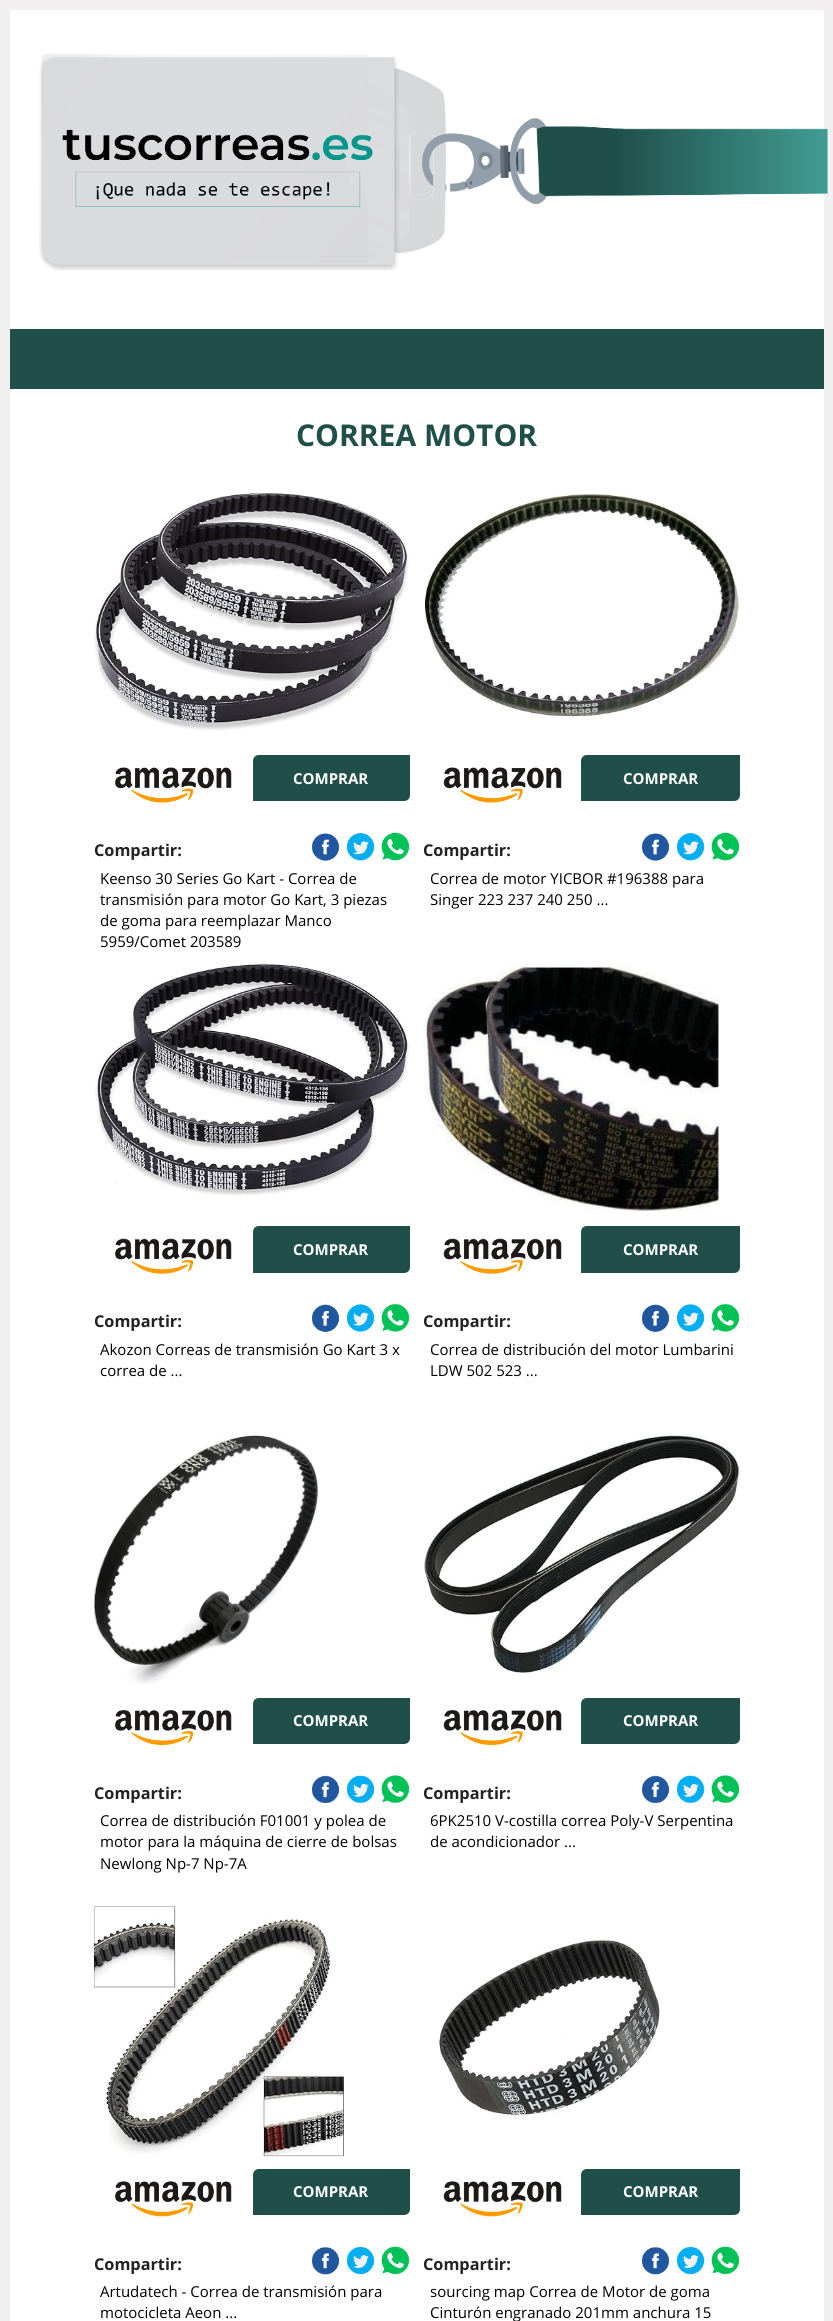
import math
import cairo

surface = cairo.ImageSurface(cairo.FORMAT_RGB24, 833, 2321)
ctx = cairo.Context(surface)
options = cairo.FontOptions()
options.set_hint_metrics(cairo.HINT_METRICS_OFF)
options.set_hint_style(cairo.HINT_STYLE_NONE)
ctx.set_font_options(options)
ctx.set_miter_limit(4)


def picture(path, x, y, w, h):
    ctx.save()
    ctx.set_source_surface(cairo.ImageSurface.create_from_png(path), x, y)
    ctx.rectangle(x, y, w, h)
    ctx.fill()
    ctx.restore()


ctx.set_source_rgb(0.945, 0.937, 0.937)
ctx.paint()
ctx.set_source_rgb(1, 1, 1)
ctx.rectangle(10, 10, 814, 2311)
ctx.fill()
picture("img1.png", 39, 53, 789, 218)
ctx.set_source_rgb(0.125, 0.31, 0.29)
ctx.rectangle(10, 329, 814, 60)
ctx.fill()
ctx.select_font_face("Open Sans", cairo.FONT_SLANT_NORMAL, cairo.FONT_WEIGHT_BOLD)
ctx.set_font_size(30)
ctx.move_to(296, 446)
ctx.show_text("CORREA MOTOR")
picture("img2.png", 94, 493, 315, 238)
picture("img3.png", 115, 767, 117, 36)
ctx.new_path()
ctx.move_to(259, 755)
ctx.line_to(410, 755)
ctx.line_to(410, 795)
ctx.curve_to(410, 798.5, 407.5, 801, 404, 801)
ctx.line_to(253, 801)
ctx.line_to(253, 761)
ctx.curve_to(253, 757.5, 255.5, 755, 259, 755)
ctx.close_path()
ctx.fill()
ctx.set_font_size(15)
ctx.set_source_rgb(1, 1, 1)
ctx.move_to(293, 784)
ctx.show_text("COMPRAR")
ctx.set_font_size(16.25)
ctx.set_source_rgb(0.133, 0.133, 0.133)
ctx.move_to(94, 856)
ctx.show_text("Compartir:")
picture("img4.png", 312, 833, 28, 28)
picture("img5.png", 347, 833, 28, 28)
picture("img6.png", 381, 832, 29, 29)
ctx.select_font_face("Open Sans")
ctx.set_font_size(15)
ctx.set_source_rgb(0, 0, 0)
ctx.move_to(100, 884)
ctx.show_text("Keenso 30 Series Go Kart - Correa de")
ctx.move_to(100, 905)
ctx.show_text("transmisión para motor Go Kart, 3 piezas")
ctx.move_to(100, 926)
ctx.show_text("de goma para reemplazar Manco")
ctx.move_to(100, 947)
ctx.show_text("5959/Comet 203589")
picture("img7.png", 424, 493, 316, 224)
picture("img8.png", 443, 767, 119, 36)
ctx.set_source_rgb(0.125, 0.31, 0.29)
ctx.new_path()
ctx.move_to(587, 755)
ctx.line_to(740, 755)
ctx.line_to(740, 795)
ctx.curve_to(740, 798.5, 737.5, 801, 734, 801)
ctx.line_to(581, 801)
ctx.line_to(581, 761)
ctx.curve_to(581, 757.5, 583.5, 755, 587, 755)
ctx.close_path()
ctx.fill()
ctx.select_font_face("Open Sans", cairo.FONT_SLANT_NORMAL, cairo.FONT_WEIGHT_BOLD)
ctx.set_source_rgb(1, 1, 1)
ctx.move_to(623, 784)
ctx.show_text("COMPRAR")
ctx.set_font_size(16.25)
ctx.set_source_rgb(0.133, 0.133, 0.133)
ctx.move_to(423, 856)
ctx.show_text("Compartir:")
picture("img9.png", 642, 833, 28, 28)
picture("img5.png", 677, 833, 28, 28)
picture("img10.png", 711, 832, 29, 29)
ctx.select_font_face("Open Sans")
ctx.set_font_size(15)
ctx.set_source_rgb(0, 0, 0)
ctx.move_to(430, 884)
ctx.show_text("Correa de motor YICBOR #196388 para")
ctx.move_to(430, 905)
ctx.show_text("Singer 223 237 240 250 ...")
picture("img11.png", 95, 964, 315, 232)
picture("img12.png", 115, 1238, 117, 36)
ctx.set_source_rgb(0.125, 0.31, 0.29)
ctx.new_path()
ctx.move_to(259, 1226)
ctx.line_to(410, 1226)
ctx.line_to(410, 1267)
ctx.curve_to(410, 1270.5, 407.5, 1273, 404, 1273)
ctx.line_to(253, 1273)
ctx.line_to(253, 1232)
ctx.curve_to(253, 1228.5, 255.5, 1226, 259, 1226)
ctx.close_path()
ctx.fill()
ctx.select_font_face("Open Sans", cairo.FONT_SLANT_NORMAL, cairo.FONT_WEIGHT_BOLD)
ctx.set_source_rgb(1, 1, 1)
ctx.move_to(293, 1255)
ctx.show_text("COMPRAR")
ctx.set_font_size(16.25)
ctx.set_source_rgb(0.133, 0.133, 0.133)
ctx.move_to(94, 1327)
ctx.show_text("Compartir:")
picture("img13.png", 312, 1304, 28, 28)
picture("img14.png", 347, 1304, 28, 28)
picture("img15.png", 381, 1303, 29, 29)
ctx.select_font_face("Open Sans")
ctx.set_font_size(15)
ctx.set_source_rgb(0, 0, 0)
ctx.move_to(100, 1355)
ctx.show_text("Akozon Correas de transmisión Go Kart 3 x")
ctx.move_to(100, 1376)
ctx.show_text("correa de ...")
picture("img16.png", 424, 964, 297, 249)
picture("img17.png", 443, 1238, 119, 36)
ctx.set_source_rgb(0.125, 0.31, 0.29)
ctx.new_path()
ctx.move_to(587, 1226)
ctx.line_to(740, 1226)
ctx.line_to(740, 1267)
ctx.curve_to(740, 1270.5, 737.5, 1273, 734, 1273)
ctx.line_to(581, 1273)
ctx.line_to(581, 1232)
ctx.curve_to(581, 1228.5, 583.5, 1226, 587, 1226)
ctx.close_path()
ctx.fill()
ctx.select_font_face("Open Sans", cairo.FONT_SLANT_NORMAL, cairo.FONT_WEIGHT_BOLD)
ctx.set_source_rgb(1, 1, 1)
ctx.move_to(623, 1255)
ctx.show_text("COMPRAR")
ctx.set_font_size(16.25)
ctx.set_source_rgb(0.133, 0.133, 0.133)
ctx.move_to(423, 1327)
ctx.show_text("Compartir:")
picture("img18.png", 642, 1304, 28, 28)
picture("img14.png", 677, 1304, 28, 28)
picture("img19.png", 711, 1303, 29, 29)
ctx.select_font_face("Open Sans")
ctx.set_font_size(15)
ctx.set_source_rgb(0, 0, 0)
ctx.move_to(430, 1355)
ctx.show_text("Correa de distribución del motor Lumbarini")
ctx.move_to(430, 1376)
ctx.show_text("LDW 502 523 ...")
picture("img20.png", 93, 1435, 225, 250)
picture("img21.png", 115, 1710, 117, 35)
ctx.set_source_rgb(0.125, 0.31, 0.29)
ctx.new_path()
ctx.move_to(259, 1698)
ctx.line_to(410, 1698)
ctx.line_to(410, 1738)
ctx.curve_to(410, 1741.5, 407.5, 1744, 404, 1744)
ctx.line_to(253, 1744)
ctx.line_to(253, 1704)
ctx.curve_to(253, 1700.5, 255.5, 1698, 259, 1698)
ctx.close_path()
ctx.fill()
ctx.select_font_face("Open Sans", cairo.FONT_SLANT_NORMAL, cairo.FONT_WEIGHT_BOLD)
ctx.set_source_rgb(1, 1, 1)
ctx.move_to(293, 1726)
ctx.show_text("COMPRAR")
ctx.set_font_size(16.25)
ctx.set_source_rgb(0.133, 0.133, 0.133)
ctx.move_to(94, 1799)
ctx.show_text("Compartir:")
picture("img22.png", 312, 1775, 28, 28)
picture("img23.png", 347, 1775, 28, 28)
picture("img24.png", 381, 1775, 29, 28)
ctx.select_font_face("Open Sans")
ctx.set_font_size(15)
ctx.set_source_rgb(0, 0, 0)
ctx.move_to(100, 1826)
ctx.show_text("Correa de distribución F01001 y polea de")
ctx.move_to(100, 1847)
ctx.show_text("motor para la máquina de cierre de bolsas")
ctx.move_to(100, 1869)
ctx.show_text("Newlong Np-7 Np-7A")
picture("img25.png", 424, 1435, 316, 239)
picture("img26.png", 443, 1710, 119, 35)
ctx.set_source_rgb(0.125, 0.31, 0.29)
ctx.new_path()
ctx.move_to(587, 1698)
ctx.line_to(740, 1698)
ctx.line_to(740, 1738)
ctx.curve_to(740, 1741.5, 737.5, 1744, 734, 1744)
ctx.line_to(581, 1744)
ctx.line_to(581, 1704)
ctx.curve_to(581, 1700.5, 583.5, 1698, 587, 1698)
ctx.close_path()
ctx.fill()
ctx.select_font_face("Open Sans", cairo.FONT_SLANT_NORMAL, cairo.FONT_WEIGHT_BOLD)
ctx.set_source_rgb(1, 1, 1)
ctx.move_to(623, 1726)
ctx.show_text("COMPRAR")
ctx.set_font_size(16.25)
ctx.set_source_rgb(0.133, 0.133, 0.133)
ctx.move_to(423, 1799)
ctx.show_text("Compartir:")
picture("img27.png", 642, 1775, 28, 28)
picture("img23.png", 677, 1775, 28, 28)
picture("img28.png", 711, 1775, 29, 28)
ctx.select_font_face("Open Sans")
ctx.set_font_size(15)
ctx.set_source_rgb(0, 0, 0)
ctx.move_to(430, 1826)
ctx.show_text("6PK2510 V-costilla correa Poly-V Serpentina")
ctx.move_to(430, 1847)
ctx.show_text("de acondicionador ...")
picture("img29.png", 93, 1906, 251, 251)
picture("img30.png", 115, 2181, 117, 36)
ctx.set_source_rgb(0.125, 0.31, 0.29)
ctx.new_path()
ctx.move_to(259, 2169)
ctx.line_to(410, 2169)
ctx.line_to(410, 2209)
ctx.curve_to(410, 2212.5, 407.5, 2215, 404, 2215)
ctx.line_to(253, 2215)
ctx.line_to(253, 2175)
ctx.curve_to(253, 2171.5, 255.5, 2169, 259, 2169)
ctx.close_path()
ctx.fill()
ctx.select_font_face("Open Sans", cairo.FONT_SLANT_NORMAL, cairo.FONT_WEIGHT_BOLD)
ctx.set_source_rgb(1, 1, 1)
ctx.move_to(293, 2197)
ctx.show_text("COMPRAR")
ctx.set_font_size(16.25)
ctx.set_source_rgb(0.133, 0.133, 0.133)
ctx.move_to(94, 2270)
ctx.show_text("Compartir:")
picture("img31.png", 312, 2247, 28, 28)
picture("img32.png", 347, 2247, 28, 28)
picture("img33.png", 381, 2246, 29, 29)
ctx.select_font_face("Open Sans")
ctx.set_font_size(15)
ctx.set_source_rgb(0, 0, 0)
ctx.move_to(100, 2297)
ctx.show_text("Artudatech - Correa de transmisión para")
ctx.move_to(100, 2318)
ctx.show_text("motocicleta Aeon ...")
picture("img34.png", 437, 1940, 224, 177)
picture("img35.png", 443, 2181, 119, 36)
ctx.set_source_rgb(0.125, 0.31, 0.29)
ctx.new_path()
ctx.move_to(587, 2169)
ctx.line_to(740, 2169)
ctx.line_to(740, 2209)
ctx.curve_to(740, 2212.5, 737.5, 2215, 734, 2215)
ctx.line_to(581, 2215)
ctx.line_to(581, 2175)
ctx.curve_to(581, 2171.5, 583.5, 2169, 587, 2169)
ctx.close_path()
ctx.fill()
ctx.select_font_face("Open Sans", cairo.FONT_SLANT_NORMAL, cairo.FONT_WEIGHT_BOLD)
ctx.set_source_rgb(1, 1, 1)
ctx.move_to(623, 2197)
ctx.show_text("COMPRAR")
ctx.set_font_size(16.25)
ctx.set_source_rgb(0.133, 0.133, 0.133)
ctx.move_to(423, 2270)
ctx.show_text("Compartir:")
picture("img36.png", 642, 2247, 28, 28)
picture("img32.png", 677, 2247, 28, 28)
picture("img37.png", 711, 2246, 29, 29)
ctx.select_font_face("Open Sans")
ctx.set_font_size(15)
ctx.set_source_rgb(0, 0, 0)
ctx.move_to(430, 2297)
ctx.show_text("sourcing map Correa de Motor de goma")
ctx.move_to(430, 2318)
ctx.show_text("Cinturón engranado 201mm anchura 15")
surface.write_to_png("page.png")
